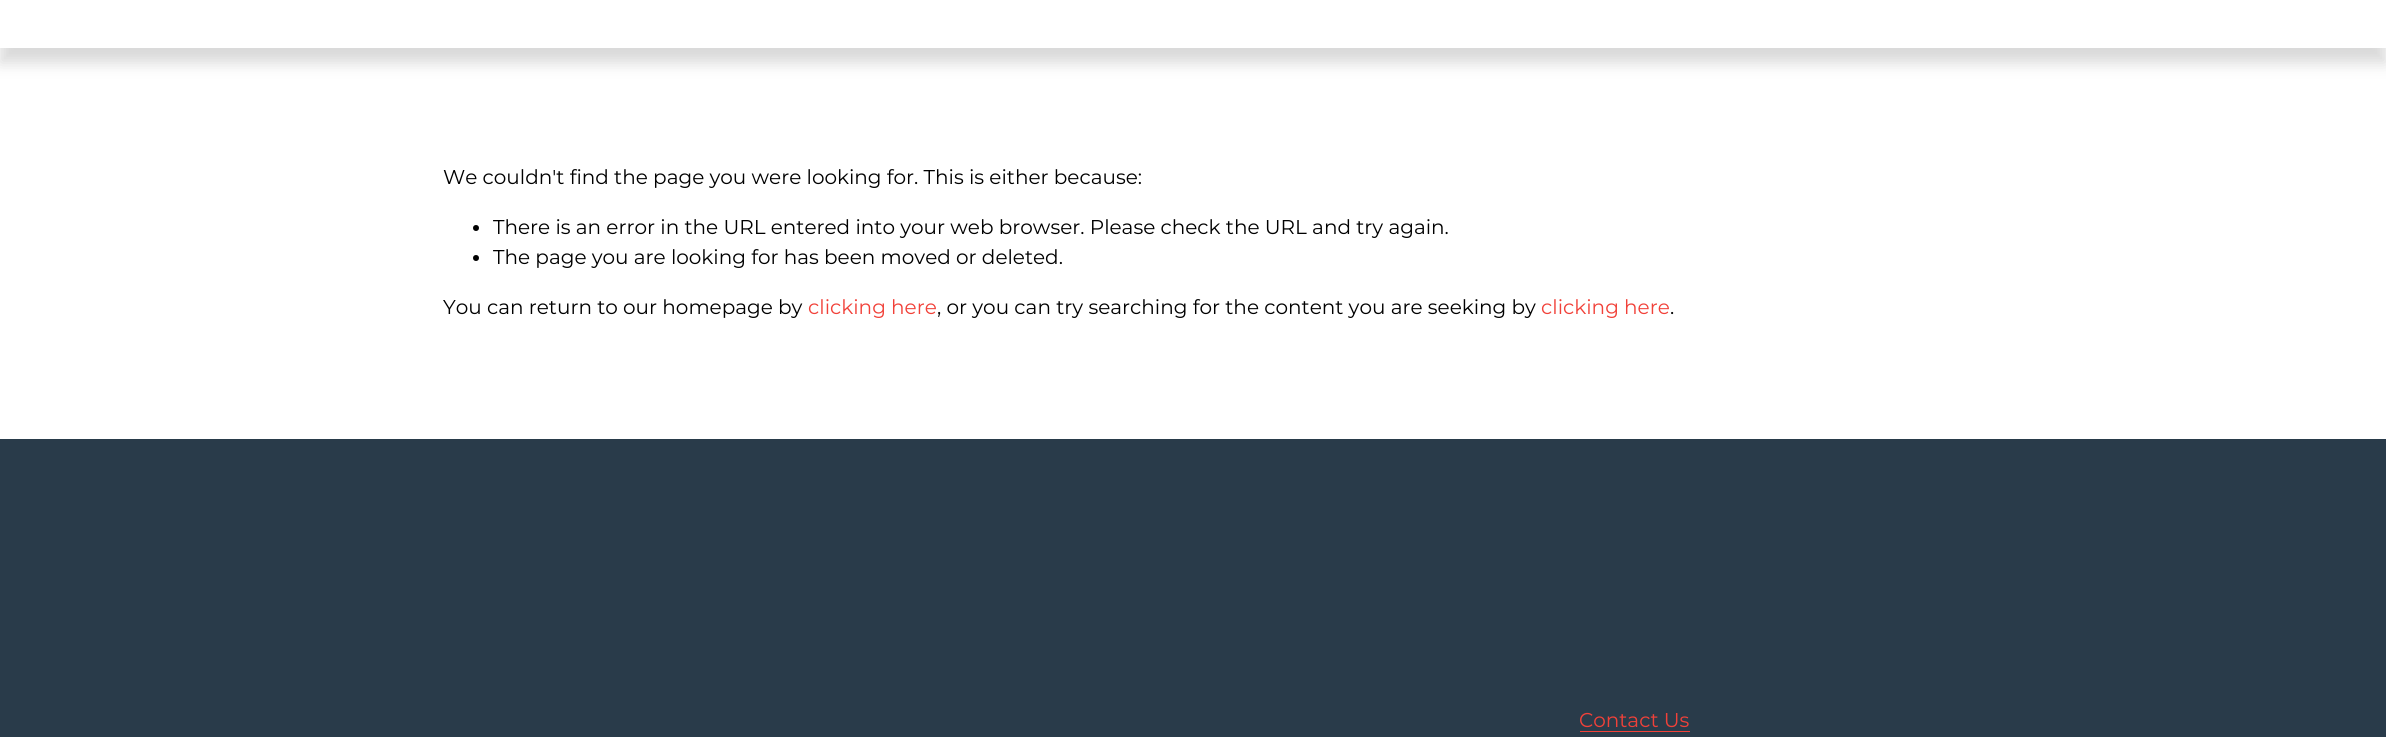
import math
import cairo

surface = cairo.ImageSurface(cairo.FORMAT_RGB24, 2386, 737)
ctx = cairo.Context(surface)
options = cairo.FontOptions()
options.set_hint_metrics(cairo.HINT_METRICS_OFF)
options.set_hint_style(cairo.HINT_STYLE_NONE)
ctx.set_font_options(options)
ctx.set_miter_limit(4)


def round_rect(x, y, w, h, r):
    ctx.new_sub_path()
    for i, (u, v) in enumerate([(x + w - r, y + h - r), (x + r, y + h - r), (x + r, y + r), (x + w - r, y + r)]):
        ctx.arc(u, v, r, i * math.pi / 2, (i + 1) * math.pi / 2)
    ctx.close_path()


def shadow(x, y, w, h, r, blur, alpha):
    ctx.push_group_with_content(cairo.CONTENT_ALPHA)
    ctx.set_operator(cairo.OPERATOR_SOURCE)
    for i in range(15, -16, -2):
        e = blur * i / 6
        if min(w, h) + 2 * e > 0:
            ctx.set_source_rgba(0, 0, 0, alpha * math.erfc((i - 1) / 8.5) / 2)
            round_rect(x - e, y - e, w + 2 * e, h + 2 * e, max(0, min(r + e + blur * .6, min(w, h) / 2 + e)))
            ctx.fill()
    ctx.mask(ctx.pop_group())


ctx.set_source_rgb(1, 1, 1)
ctx.paint()
ctx.save()
ctx.set_fill_rule(cairo.FILL_RULE_EVEN_ODD)
ctx.new_path()
ctx.move_to(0, 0)
ctx.line_to(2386, 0)
ctx.line_to(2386, 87)
ctx.line_to(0, 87)
ctx.close_path()
ctx.move_to(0, -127)
ctx.line_to(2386, -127)
ctx.line_to(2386, 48)
ctx.line_to(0, 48)
ctx.close_path()
ctx.clip()
ctx.set_source_rgb(0.851, 0.851, 0.851)
shadow(0, -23, 2386, 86, 0, 7.5, 1)
ctx.restore()
ctx.select_font_face("Montserrat")
ctx.set_font_size(20)
ctx.set_source_rgb(0, 0, 0)
ctx.move_to(443, 184)
ctx.show_text("We couldn't find the page you were looking for. This is either because:")
ctx.new_path()
ctx.arc(476, 228, 3, 0, 2 * math.pi)
ctx.fill()
ctx.move_to(493, 234)
ctx.show_text("There is an error in the URL entered into your web browser. Please check the URL and try again.")
ctx.new_path()
ctx.arc(476, 258, 3, 0, 2 * math.pi)
ctx.fill()
ctx.move_to(493, 264)
ctx.show_text("The page you are looking for has been moved or deleted.")
ctx.move_to(443, 314)
ctx.show_text("You can return to our homepage by")
ctx.set_source_rgb(0.945, 0.255, 0.224)
ctx.move_to(808, 314)
ctx.show_text("clicking here")
ctx.set_source_rgb(0, 0, 0)
ctx.move_to(937, 314)
ctx.show_text(", or you can try searching for the content you are seeking by")
ctx.set_source_rgb(0.945, 0.255, 0.224)
ctx.move_to(1541, 314)
ctx.show_text("clicking here")
ctx.set_source_rgb(0, 0, 0)
ctx.move_to(1670, 314)
ctx.show_text(".")
ctx.set_source_rgb(0.161, 0.231, 0.29)
ctx.rectangle(0, 439, 2386, 298)
ctx.fill()
ctx.set_source_rgb(0.945, 0.255, 0.224)
ctx.move_to(1579, 727)
ctx.show_text("Contact Us")
ctx.rectangle(1580, 731, 110, 1)
ctx.fill()
surface.write_to_png("page.png")
